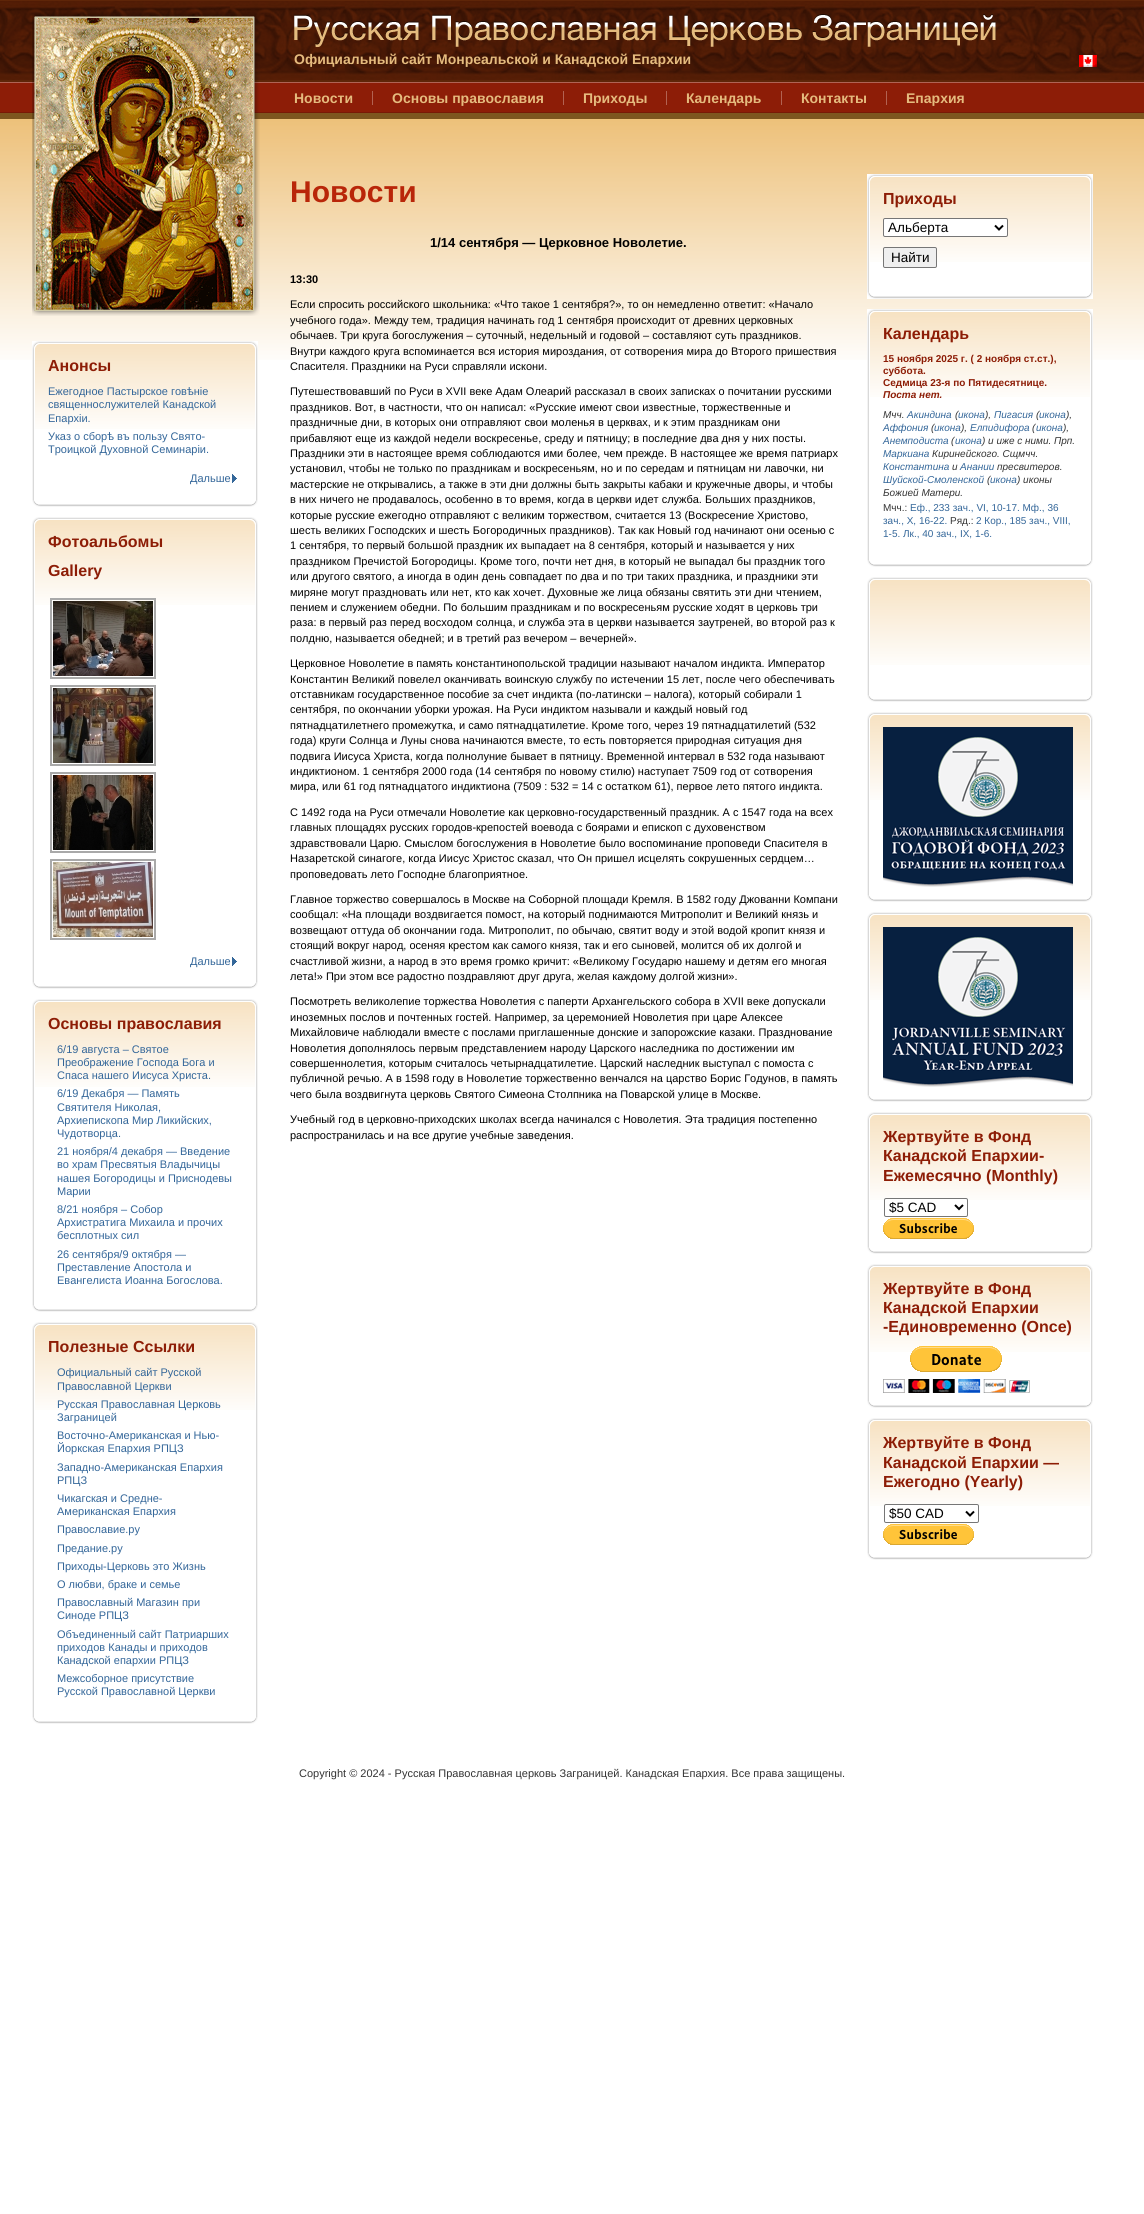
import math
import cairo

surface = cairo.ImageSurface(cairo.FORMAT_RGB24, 1144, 2214)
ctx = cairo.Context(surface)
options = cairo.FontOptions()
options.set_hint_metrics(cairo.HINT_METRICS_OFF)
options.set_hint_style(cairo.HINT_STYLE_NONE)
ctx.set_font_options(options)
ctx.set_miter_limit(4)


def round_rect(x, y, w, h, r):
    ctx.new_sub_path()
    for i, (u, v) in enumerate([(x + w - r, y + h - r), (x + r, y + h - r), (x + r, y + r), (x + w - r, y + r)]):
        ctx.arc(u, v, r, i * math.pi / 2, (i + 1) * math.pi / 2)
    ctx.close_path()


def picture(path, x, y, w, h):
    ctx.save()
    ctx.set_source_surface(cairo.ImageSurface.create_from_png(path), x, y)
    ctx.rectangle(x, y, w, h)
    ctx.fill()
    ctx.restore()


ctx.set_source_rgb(1, 1, 1)
ctx.paint()
picture("img1.png", 0, 0, 1144, 360)
picture("img2.png", 32, 12, 228, 304)
picture("img3.png", 32, 429, 226, 71)
picture("img4.png", 32, 341, 226, 88)
picture("img5.png", 32, 500, 226, 7)
ctx.select_font_face("Liberation Sans", cairo.FONT_SLANT_NORMAL, cairo.FONT_WEIGHT_BOLD)
ctx.set_font_size(16)
ctx.set_source_rgb(0.553, 0.114, 0.027)
ctx.move_to(48, 371)
ctx.show_text("Анонсы")
ctx.select_font_face("Liberation Sans")
ctx.set_font_size(11)
ctx.set_source_rgb(0.2, 0.4, 0.6)
ctx.move_to(48, 395)
ctx.show_text("Ежегодное Пастырское говѣніе")
ctx.move_to(48, 408)
ctx.show_text("священнослужителей Канадской")
ctx.move_to(48, 422)
ctx.show_text("Епархіи.")
ctx.move_to(48, 440)
ctx.show_text("Указ о сборѣ въ пользу Свято-")
ctx.move_to(48, 453)
ctx.show_text("Троицкой Духовной Семинаріи.")
picture("img6.png", 232, 474, 5, 9)
ctx.move_to(190, 482)
ctx.show_text("Дальше")
picture("img7.png", 32, 605, 226, 377)
picture("img4.png", 32, 517, 226, 88)
picture("img5.png", 32, 982, 226, 7)
ctx.select_font_face("Liberation Sans", cairo.FONT_SLANT_NORMAL, cairo.FONT_WEIGHT_BOLD)
ctx.set_font_size(16)
ctx.set_source_rgb(0.553, 0.114, 0.027)
ctx.move_to(48, 547)
ctx.show_text("Фотоальбомы")
ctx.move_to(48, 576)
ctx.show_text("Gallery")
ctx.rectangle(51, 599, 104, 79)
ctx.set_source_rgb(0.663, 0.663, 0.663)
ctx.stroke()
picture("img8.png", 53, 601, 100, 75)
ctx.rectangle(51, 686, 104, 79)
ctx.stroke()
picture("img9.png", 53, 688, 100, 75)
ctx.rectangle(51, 773, 104, 79)
ctx.stroke()
picture("img10.png", 53, 775, 100, 75)
ctx.rectangle(51, 860, 104, 79)
ctx.stroke()
picture("img11.png", 53, 862, 100, 75)
picture("img6.png", 232, 957, 5, 9)
ctx.select_font_face("Liberation Sans")
ctx.set_font_size(11)
ctx.set_source_rgb(0.2, 0.4, 0.6)
ctx.move_to(190, 965)
ctx.show_text("Дальше")
picture("img12.png", 32, 1087, 226, 218)
picture("img4.png", 32, 999, 226, 88)
picture("img5.png", 32, 1305, 226, 7)
ctx.select_font_face("Liberation Sans", cairo.FONT_SLANT_NORMAL, cairo.FONT_WEIGHT_BOLD)
ctx.set_font_size(16)
ctx.set_source_rgb(0.553, 0.114, 0.027)
ctx.move_to(48, 1029)
ctx.show_text("Основы православия")
ctx.select_font_face("Liberation Sans")
ctx.set_font_size(11)
ctx.set_source_rgb(0.2, 0.4, 0.6)
ctx.move_to(57, 1053)
ctx.show_text("6/19 августа – Святое")
ctx.move_to(57, 1066)
ctx.show_text("Преображение Господа Бога и")
ctx.move_to(57, 1079)
ctx.show_text("Спаса нашего Иисуса Христа.")
ctx.move_to(57, 1097)
ctx.show_text("6/19 Декабря — Память")
ctx.move_to(57, 1111)
ctx.show_text("Святителя Николая,")
ctx.move_to(57, 1124)
ctx.show_text("Архиепископа Мир Ликийских,")
ctx.move_to(57, 1137)
ctx.show_text("Чудотворца.")
ctx.move_to(57, 1155)
ctx.show_text("21 ноября/4 декабря — Введение")
ctx.move_to(57, 1168)
ctx.show_text("во храм Пресвятыя Владычицы")
ctx.move_to(57, 1182)
ctx.show_text("нашея Богородицы и Приснодевы")
ctx.move_to(57, 1195)
ctx.show_text("Марии")
ctx.move_to(57, 1213)
ctx.show_text("8/21 ноября – Собор")
ctx.move_to(57, 1226)
ctx.show_text("Архистратига Михаила и прочих")
ctx.move_to(57, 1239)
ctx.show_text("бесплотных сил")
ctx.move_to(57, 1258)
ctx.show_text("26 сентября/9 октября —")
ctx.move_to(57, 1271)
ctx.show_text("Преставление Апостола и")
ctx.move_to(57, 1284)
ctx.show_text("Евангелиста Иоанна Богослова.")
picture("img13.png", 32, 1410, 226, 307)
picture("img4.png", 32, 1322, 226, 88)
picture("img5.png", 32, 1717, 226, 7)
ctx.select_font_face("Liberation Sans", cairo.FONT_SLANT_NORMAL, cairo.FONT_WEIGHT_BOLD)
ctx.set_font_size(16)
ctx.set_source_rgb(0.553, 0.114, 0.027)
ctx.move_to(48, 1352)
ctx.show_text("Полезные Ссылки")
ctx.select_font_face("Liberation Sans")
ctx.set_font_size(11)
ctx.set_source_rgb(0.2, 0.4, 0.6)
ctx.move_to(57, 1376)
ctx.show_text("Официальный сайт Русской")
ctx.move_to(57, 1390)
ctx.show_text("Православной Церкви")
ctx.move_to(57, 1408)
ctx.show_text("Русская Православная Церковь")
ctx.move_to(57, 1421)
ctx.show_text("Заграницей")
ctx.move_to(57, 1439)
ctx.show_text("Восточно-Американская и Нью-")
ctx.move_to(57, 1452)
ctx.show_text("Йоркская Епархия РПЦЗ")
ctx.move_to(57, 1471)
ctx.show_text("Западно-Американская Епархия")
ctx.move_to(57, 1484)
ctx.show_text("РПЦЗ")
ctx.move_to(57, 1502)
ctx.show_text("Чикагская и Средне-")
ctx.move_to(57, 1515)
ctx.show_text("Американская Епархия")
ctx.move_to(57, 1533)
ctx.show_text("Православие.ру")
ctx.move_to(57, 1552)
ctx.show_text("Предание.ру")
ctx.move_to(57, 1570)
ctx.show_text("Приходы-Церковь это Жизнь")
ctx.move_to(57, 1588)
ctx.show_text("О любви, браке и семье")
ctx.move_to(57, 1606)
ctx.show_text("Православный Магазин при")
ctx.move_to(57, 1619)
ctx.show_text("Синоде РПЦЗ")
ctx.move_to(57, 1638)
ctx.show_text("Объединенный сайт Патриарших")
ctx.move_to(57, 1651)
ctx.show_text("приходов Канады и приходов")
ctx.move_to(57, 1664)
ctx.show_text("Канадской епархии РПЦЗ")
ctx.move_to(57, 1682)
ctx.show_text("Межсоборное присутствие")
ctx.move_to(57, 1695)
ctx.show_text("Русской Православной Церкви")
picture("img14.png", 294, 14, 702, 33)
ctx.select_font_face("Liberation Sans", cairo.FONT_SLANT_NORMAL, cairo.FONT_WEIGHT_BOLD)
ctx.set_font_size(14)
ctx.set_source_rgb(0.898, 0.733, 0.494)
ctx.move_to(294, 64)
ctx.show_text("Официальный сайт Монреальской и Канадской Епархии")
picture("img15.png", 1079, 55, 18, 12)
ctx.move_to(294, 103)
ctx.show_text("Новости")
ctx.set_source_rgb(0.698, 0.384, 0.322)
ctx.rectangle(372, 91, 1, 14)
ctx.fill()
ctx.set_source_rgb(0.898, 0.733, 0.494)
ctx.move_to(392, 103)
ctx.show_text("Основы православия")
ctx.set_source_rgb(0.698, 0.384, 0.322)
ctx.rectangle(563, 91, 1, 14)
ctx.fill()
ctx.set_source_rgb(0.898, 0.733, 0.494)
ctx.move_to(583, 103)
ctx.show_text("Приходы")
ctx.set_source_rgb(0.698, 0.384, 0.322)
ctx.rectangle(666, 91, 1, 14)
ctx.fill()
ctx.set_source_rgb(0.898, 0.733, 0.494)
ctx.move_to(686, 103)
ctx.show_text("Календарь")
ctx.set_source_rgb(0.698, 0.384, 0.322)
ctx.rectangle(781, 91, 1, 14)
ctx.fill()
ctx.set_source_rgb(0.898, 0.733, 0.494)
ctx.move_to(801, 103)
ctx.show_text("Контакты")
ctx.set_source_rgb(0.698, 0.384, 0.322)
ctx.rectangle(886, 91, 1, 14)
ctx.fill()
ctx.set_source_rgb(0.898, 0.733, 0.494)
ctx.move_to(906, 103)
ctx.show_text("Епархия")
ctx.set_font_size(30)
ctx.set_source_rgb(0.725, 0.149, 0.039)
ctx.move_to(290, 202)
ctx.show_text("Новости")
ctx.set_font_size(13)
ctx.set_source_rgb(0, 0, 0)
ctx.move_to(430, 247)
ctx.show_text("1/14 сентября — Церковное Новолетие.")
ctx.set_font_size(11)
ctx.move_to(290, 283)
ctx.show_text("13:30")
ctx.select_font_face("Liberation Sans")
ctx.move_to(290, 308)
ctx.show_text("Если спросить российского школьника: «Что такое 1 сентября?», то он немедленно ответит: «Начало")
ctx.move_to(290, 324)
ctx.show_text("учебного года». Между тем, традиция начинать год 1 сентября происходит от древних церковных")
ctx.move_to(290, 339)
ctx.show_text("обычаев. Три круга богослужения – суточный, недельный и годовой – составляют суть праздников.")
ctx.move_to(290, 355)
ctx.show_text("Внутри каждого круга вспоминается вся история мироздания, от сотворения мира до Второго пришествия")
ctx.move_to(290, 370)
ctx.show_text("Спасителя. Праздники на Руси справляли искони.")
ctx.move_to(290, 395)
ctx.show_text("Путешествовавший по Руси в XVII веке Адам Олеарий рассказал в своих записках о почитании русскими")
ctx.move_to(290, 411)
ctx.show_text("праздников. Вот, в частности, что он написал: «Русские имеют свои известные, торжественные и")
ctx.move_to(290, 426)
ctx.show_text("праздничные дни, в которых они отправляют свои моленья в церквах, и к этим праздникам они")
ctx.move_to(290, 442)
ctx.show_text("прибавляют еще из каждой недели воскресенье, среду и пятницу; в последние два дня у них посты.")
ctx.move_to(290, 457)
ctx.show_text("Праздники эти в настоящее время соблюдаются ими более, чем прежде. В настоящее же время патриарх")
ctx.move_to(290, 472)
ctx.show_text("установил, чтобы не только по праздникам и воскресеньям, но и по середам и пятницам ни лавочки, ни")
ctx.move_to(290, 488)
ctx.show_text("мастерские не открывались, а также в эти дни должны быть закрыты кабаки и кружечные дворы, и чтобы")
ctx.move_to(290, 503)
ctx.show_text("в них ничего не продавалось, особенно в то время, когда в церкви идет служба. Больших праздников,")
ctx.move_to(290, 519)
ctx.show_text("которые русские ежегодно отправляют с великим торжеством, считается 13 (Воскресение Христово,")
ctx.move_to(290, 534)
ctx.show_text("шесть великих Господских и шесть Богородичных праздников). Так как Новый год начинают они осенью с")
ctx.move_to(290, 549)
ctx.show_text("1 сентября, то первый большой праздник их выпадает на 8 сентября, который и называется у них")
ctx.move_to(290, 565)
ctx.show_text("праздником Пречистой Богородицы. Кроме того, почти нет дня, в который не выпадал бы праздник того")
ctx.move_to(290, 580)
ctx.show_text("или другого святого, а иногда в один день совпадает по два и по три таких праздника, и праздники эти")
ctx.move_to(290, 596)
ctx.show_text("миряне могут праздновать или нет, кто как хочет. Духовные же лица обязаны святить эти дни чтением,")
ctx.move_to(290, 611)
ctx.show_text("пением и служением обедни. По большим праздникам и по воскресеньям русские ходят в церковь три")
ctx.move_to(290, 626)
ctx.show_text("раза: в первый раз перед восходом солнца, и служба эта в церкви называется заутреней, во второй раз к")
ctx.move_to(290, 642)
ctx.show_text("полдню, называется обедней; и в третий раз вечером – вечерней».")
ctx.move_to(290, 667)
ctx.show_text("Церковное Новолетие в память константинопольской традиции называют началом индикта. Император")
ctx.move_to(290, 683)
ctx.show_text("Константин Великий повелел оканчивать воинскую службу по истечении 15 лет, после чего обеспечивать")
ctx.move_to(290, 698)
ctx.show_text("отставникам государственное пособие за счет индикта (по-латински – налога), который собирали 1")
ctx.move_to(290, 713)
ctx.show_text("сентября, по окончании уборки урожая. На Руси индиктом называли и каждый новый год")
ctx.move_to(290, 729)
ctx.show_text("пятнадцатилетнего промежутка, и само пятнадцатилетие. Кроме того, через 19 пятнадцатилетий (532")
ctx.move_to(290, 744)
ctx.show_text("года) круги Солнца и Луны снова начинаются вместе, то есть повторяется природная ситуация дня")
ctx.move_to(290, 760)
ctx.show_text("подвига Иисуса Христа, когда полнолуние бывает в пятницу. Временной интервал в 532 года называют")
ctx.move_to(290, 775)
ctx.show_text("индиктионом. 1 сентября 2000 года (14 сентября по новому стилю) наступает 7509 год от сотворения")
ctx.move_to(290, 790)
ctx.show_text("мира, или 61 год пятнадцатого индиктиона (7509 : 532 = 14 с остатком 61), первое лето пятого индикта.")
ctx.move_to(290, 816)
ctx.show_text("С 1492 года на Руси отмечали Новолетие как церковно-государственный праздник. А с 1547 года на всех")
ctx.move_to(290, 831)
ctx.show_text("главных площадях русских городов-крепостей воевода с боярами и епископ с духовенством")
ctx.move_to(290, 847)
ctx.show_text("здравствовали Царю. Смыслом богослужения в Новолетие было воспоминание проповеди Спасителя в")
ctx.move_to(290, 862)
ctx.show_text("Назаретской синагоге, когда Иисус Христос сказал, что Он пришел исцелять сокрушенных сердцем…")
ctx.move_to(290, 878)
ctx.show_text("проповедовать лето Господне благоприятное.")
ctx.move_to(290, 903)
ctx.show_text("Главное торжество совершалось в Москве на Соборной площади Кремля. В 1582 году Джованни Компани")
ctx.move_to(290, 918)
ctx.show_text("сообщал: «На площади воздвигается помост, на который поднимаются Митрополит и Великий князь и")
ctx.move_to(290, 934)
ctx.show_text("возвещают оттуда об окончании года. Митрополит, по обычаю, святит воду и этой водой кропит князя и")
ctx.move_to(290, 949)
ctx.show_text("стоящий вокруг народ, осеняя крестом как самого князя, так и его сыновей, молится об их долгой и")
ctx.move_to(290, 965)
ctx.show_text("счастливой жизни, а народ в это время громко кричит: «Великому Государю нашему и детям его многая")
ctx.move_to(290, 980)
ctx.show_text("лета!» При этом все радостно поздравляют друг друга, желая каждому долгой жизни».")
ctx.move_to(290, 1005)
ctx.show_text("Посмотреть великолепие торжества Новолетия с паперти Архангельского собора в XVII веке допускали")
ctx.move_to(290, 1021)
ctx.show_text("иноземных послов и почтенных гостей. Например, за церемонией Новолетия при царе Алексее")
ctx.move_to(290, 1036)
ctx.show_text("Михайловиче наблюдали вместе с послами приглашенные донские и запорожские казаки. Празднование")
ctx.move_to(290, 1052)
ctx.show_text("Новолетия дополнялось первым представлением народу Царского наследника по достижении им")
ctx.move_to(290, 1067)
ctx.show_text("совершеннолетия, которым считалось четырнадцатилетие. Царский наследник выступал с помоста с")
ctx.move_to(290, 1082)
ctx.show_text("публичной речью. А в 1598 году в Новолетие торжественно венчался на царство Борис Годунов, в память")
ctx.move_to(290, 1098)
ctx.show_text("чего была воздвигнута церковь Святого Симеона Столпника на Поварской улице в Москве.")
ctx.move_to(290, 1123)
ctx.show_text("Учебный год в церковно-приходских школах всегда начинался с Новолетия. Эта традиция постепенно")
ctx.move_to(290, 1139)
ctx.show_text("распространилась и на все другие учебные заведения.")
picture("img16.png", 867, 262, 226, 30)
picture("img4.png", 867, 174, 226, 88)
picture("img5.png", 867, 292, 226, 7)
ctx.select_font_face("Liberation Sans", cairo.FONT_SLANT_NORMAL, cairo.FONT_WEIGHT_BOLD)
ctx.set_font_size(16)
ctx.set_source_rgb(0.553, 0.114, 0.027)
ctx.move_to(883, 204)
ctx.show_text("Приходы")
ctx.set_source_rgb(1, 1, 1)
round_rect(883.5, 218.5, 124, 18, 1.5)
ctx.fill_preserve()
ctx.set_source_rgb(0.463, 0.463, 0.463)
ctx.set_line_width(1)
ctx.stroke()
ctx.new_path()
ctx.move_to(995, 225.5)
ctx.line_to(999, 229.5)
ctx.line_to(1003, 225.5)
ctx.set_source_rgb(0, 0, 0)
ctx.set_line_width(2)
ctx.stroke()
ctx.select_font_face("Liberation Sans")
ctx.set_font_size(13.5)
ctx.move_to(888, 232)
ctx.show_text("Альберта")
ctx.set_source_rgb(0.937, 0.937, 0.937)
round_rect(883.5, 247.5, 53, 20, 1.5)
ctx.fill_preserve()
ctx.set_source_rgb(0.463, 0.463, 0.463)
ctx.set_line_width(1)
ctx.stroke()
ctx.set_source_rgb(0, 0, 0)
ctx.move_to(891, 262)
ctx.show_text("Найти")
picture("img17.png", 867, 397, 226, 163)
picture("img4.png", 867, 309, 226, 88)
picture("img5.png", 867, 560, 226, 7)
ctx.select_font_face("Liberation Sans", cairo.FONT_SLANT_NORMAL, cairo.FONT_WEIGHT_BOLD)
ctx.set_font_size(16)
ctx.set_source_rgb(0.553, 0.114, 0.027)
ctx.move_to(883, 339)
ctx.show_text("Календарь")
ctx.set_font_size(10)
ctx.move_to(883, 362)
ctx.show_text("15 ноября 2025 г. ( 2 ноября ст.ст.),")
ctx.move_to(883, 374)
ctx.show_text("суббота.")
ctx.move_to(883, 386)
ctx.show_text("Седмица 23-я по Пятидесятнице.")
ctx.select_font_face("Liberation Sans", cairo.FONT_SLANT_ITALIC, cairo.FONT_WEIGHT_BOLD)
ctx.move_to(883, 398)
ctx.show_text("Поста нет.")
ctx.select_font_face("Liberation Sans", cairo.FONT_SLANT_ITALIC)
ctx.set_source_rgb(0.2, 0.2, 0.2)
ctx.move_to(883, 418)
ctx.show_text("Мчч.")
ctx.set_source_rgb(0.2, 0.4, 0.6)
ctx.move_to(907, 418)
ctx.show_text("Акиндина")
ctx.set_source_rgb(0.2, 0.2, 0.2)
ctx.move_to(955, 418)
ctx.show_text("(")
ctx.set_source_rgb(0.2, 0.4, 0.6)
ctx.move_to(958, 418)
ctx.show_text("икона")
ctx.set_source_rgb(0.2, 0.2, 0.2)
ctx.move_to(985, 418)
ctx.show_text("),")
ctx.set_source_rgb(0.2, 0.4, 0.6)
ctx.move_to(994, 418)
ctx.show_text("Пигасия")
ctx.set_source_rgb(0.2, 0.2, 0.2)
ctx.move_to(1036, 418)
ctx.show_text("(")
ctx.set_source_rgb(0.2, 0.4, 0.6)
ctx.move_to(1039, 418)
ctx.show_text("икона")
ctx.set_source_rgb(0.2, 0.2, 0.2)
ctx.move_to(1066, 418)
ctx.show_text("),")
ctx.set_source_rgb(0.2, 0.4, 0.6)
ctx.move_to(883, 431)
ctx.show_text("Аффония")
ctx.set_source_rgb(0.2, 0.2, 0.2)
ctx.move_to(931, 431)
ctx.show_text("(")
ctx.set_source_rgb(0.2, 0.4, 0.6)
ctx.move_to(934, 431)
ctx.show_text("икона")
ctx.set_source_rgb(0.2, 0.2, 0.2)
ctx.move_to(961, 431)
ctx.show_text("),")
ctx.set_source_rgb(0.2, 0.4, 0.6)
ctx.move_to(970, 431)
ctx.show_text("Елпидифора")
ctx.set_source_rgb(0.2, 0.2, 0.2)
ctx.move_to(1032, 431)
ctx.show_text("(")
ctx.set_source_rgb(0.2, 0.4, 0.6)
ctx.move_to(1036, 431)
ctx.show_text("икона")
ctx.set_source_rgb(0.2, 0.2, 0.2)
ctx.move_to(1063, 431)
ctx.show_text("),")
ctx.set_source_rgb(0.2, 0.4, 0.6)
ctx.move_to(883, 444)
ctx.show_text("Анемподиста")
ctx.set_source_rgb(0.2, 0.2, 0.2)
ctx.move_to(951, 444)
ctx.show_text("(")
ctx.set_source_rgb(0.2, 0.4, 0.6)
ctx.move_to(955, 444)
ctx.show_text("икона")
ctx.set_source_rgb(0.2, 0.2, 0.2)
ctx.move_to(982, 444)
ctx.show_text(") и иже с ними. Прп.")
ctx.set_source_rgb(0.2, 0.4, 0.6)
ctx.move_to(883, 457)
ctx.show_text("Маркиана")
ctx.set_source_rgb(0.2, 0.2, 0.2)
ctx.move_to(932, 457)
ctx.show_text("Киринейского. Сщмчч.")
ctx.set_source_rgb(0.2, 0.4, 0.6)
ctx.move_to(883, 470)
ctx.show_text("Константина")
ctx.set_source_rgb(0.2, 0.2, 0.2)
ctx.move_to(952, 470)
ctx.show_text("и")
ctx.set_source_rgb(0.2, 0.4, 0.6)
ctx.move_to(960, 470)
ctx.show_text("Анании")
ctx.set_source_rgb(0.2, 0.2, 0.2)
ctx.move_to(997, 470)
ctx.show_text("пресвитеров.")
ctx.set_source_rgb(0.2, 0.4, 0.6)
ctx.move_to(883, 483)
ctx.show_text("Шуйской-Смоленской")
ctx.set_source_rgb(0.2, 0.2, 0.2)
ctx.move_to(987, 483)
ctx.show_text("(")
ctx.set_source_rgb(0.2, 0.4, 0.6)
ctx.move_to(990, 483)
ctx.show_text("икона")
ctx.set_source_rgb(0.2, 0.2, 0.2)
ctx.move_to(1017, 483)
ctx.show_text(") иконы")
ctx.move_to(883, 496)
ctx.show_text("Божией Матери.")
ctx.select_font_face("Liberation Sans")
ctx.move_to(883, 511)
ctx.show_text("Мчч.:")
ctx.set_source_rgb(0.2, 0.4, 0.6)
ctx.move_to(910, 511)
ctx.show_text("Еф., 233 зач., VI, 10-17. Мф., 36")
ctx.move_to(883, 524)
ctx.show_text("зач., X, 16-22.")
ctx.set_source_rgb(0.2, 0.2, 0.2)
ctx.move_to(950, 524)
ctx.show_text("Ряд.:")
ctx.set_source_rgb(0.2, 0.4, 0.6)
ctx.move_to(976, 524)
ctx.show_text("2 Кор., 185 зач., VIII,")
ctx.move_to(883, 537)
ctx.show_text("1-5. Лк., 40 зач., IX, 1-6.")
picture("img16.png", 867, 665, 226, 30)
picture("img4.png", 867, 577, 226, 88)
picture("img5.png", 867, 695, 226, 7)
picture("img18.png", 867, 800, 226, 95)
picture("img4.png", 867, 712, 226, 88)
picture("img5.png", 867, 895, 226, 7)
picture("img19.png", 883, 727, 190, 160)
picture("img18.png", 867, 1000, 226, 95)
picture("img4.png", 867, 912, 226, 88)
picture("img5.png", 867, 1095, 226, 7)
picture("img20.png", 883, 927, 190, 160)
picture("img21.png", 867, 1200, 226, 47)
picture("img4.png", 867, 1112, 226, 88)
picture("img5.png", 867, 1247, 226, 7)
ctx.select_font_face("Liberation Sans", cairo.FONT_SLANT_NORMAL, cairo.FONT_WEIGHT_BOLD)
ctx.set_font_size(16)
ctx.set_source_rgb(0.553, 0.114, 0.027)
ctx.move_to(883, 1142)
ctx.show_text("Жертвуйте в Фонд")
ctx.move_to(883, 1161)
ctx.show_text("Канадской Епархии-")
ctx.move_to(883, 1181)
ctx.show_text("Ежемесячно (Monthly)")
ctx.set_source_rgb(1, 1, 1)
round_rect(884.5, 1198.5, 83, 18, 1.5)
ctx.fill_preserve()
ctx.set_source_rgb(0.463, 0.463, 0.463)
ctx.stroke()
ctx.new_path()
ctx.move_to(955, 1205)
ctx.line_to(959, 1209)
ctx.line_to(963, 1205)
ctx.set_source_rgb(0, 0, 0)
ctx.set_line_width(2)
ctx.stroke()
ctx.select_font_face("Liberation Sans")
ctx.set_font_size(13.5)
ctx.move_to(889, 1212)
ctx.show_text("$5 CAD")
picture("img22.png", 883, 1218, 91, 21)
picture("img23.png", 867, 1352, 226, 49)
picture("img4.png", 867, 1264, 226, 88)
picture("img5.png", 867, 1401, 226, 7)
ctx.select_font_face("Liberation Sans", cairo.FONT_SLANT_NORMAL, cairo.FONT_WEIGHT_BOLD)
ctx.set_font_size(16)
ctx.set_source_rgb(0.553, 0.114, 0.027)
ctx.move_to(883, 1294)
ctx.show_text("Жертвуйте в Фонд")
ctx.move_to(883, 1313)
ctx.show_text("Канадской Епархии")
ctx.move_to(883, 1332)
ctx.show_text("-Единовременно (Once)")
picture("img24.png", 883, 1346, 147, 47)
picture("img21.png", 867, 1506, 226, 47)
picture("img4.png", 867, 1418, 226, 88)
picture("img5.png", 867, 1553, 226, 7)
ctx.move_to(883, 1448)
ctx.show_text("Жертвуйте в Фонд")
ctx.move_to(883, 1468)
ctx.show_text("Канадской Епархии —")
ctx.move_to(883, 1487)
ctx.show_text("Ежегодно (Yearly)")
ctx.set_source_rgb(1, 1, 1)
round_rect(884.5, 1504.5, 94, 18, 1.5)
ctx.fill_preserve()
ctx.set_source_rgb(0.463, 0.463, 0.463)
ctx.set_line_width(1)
ctx.stroke()
ctx.new_path()
ctx.move_to(966, 1511.5)
ctx.line_to(970, 1515.5)
ctx.line_to(974, 1511.5)
ctx.set_source_rgb(0, 0, 0)
ctx.set_line_width(2)
ctx.stroke()
ctx.select_font_face("Liberation Sans")
ctx.set_font_size(13.5)
ctx.move_to(889, 1518)
ctx.show_text("$50 CAD")
picture("img22.png", 883, 1524, 91, 21)
ctx.set_font_size(11)
ctx.set_source_rgb(0.2, 0.2, 0.2)
ctx.move_to(299, 1777)
ctx.show_text("Copyright © 2024 - Русская Православная церковь Заграницей. Канадская Eпархия. Все права защищены.")
surface.write_to_png("page.png")
